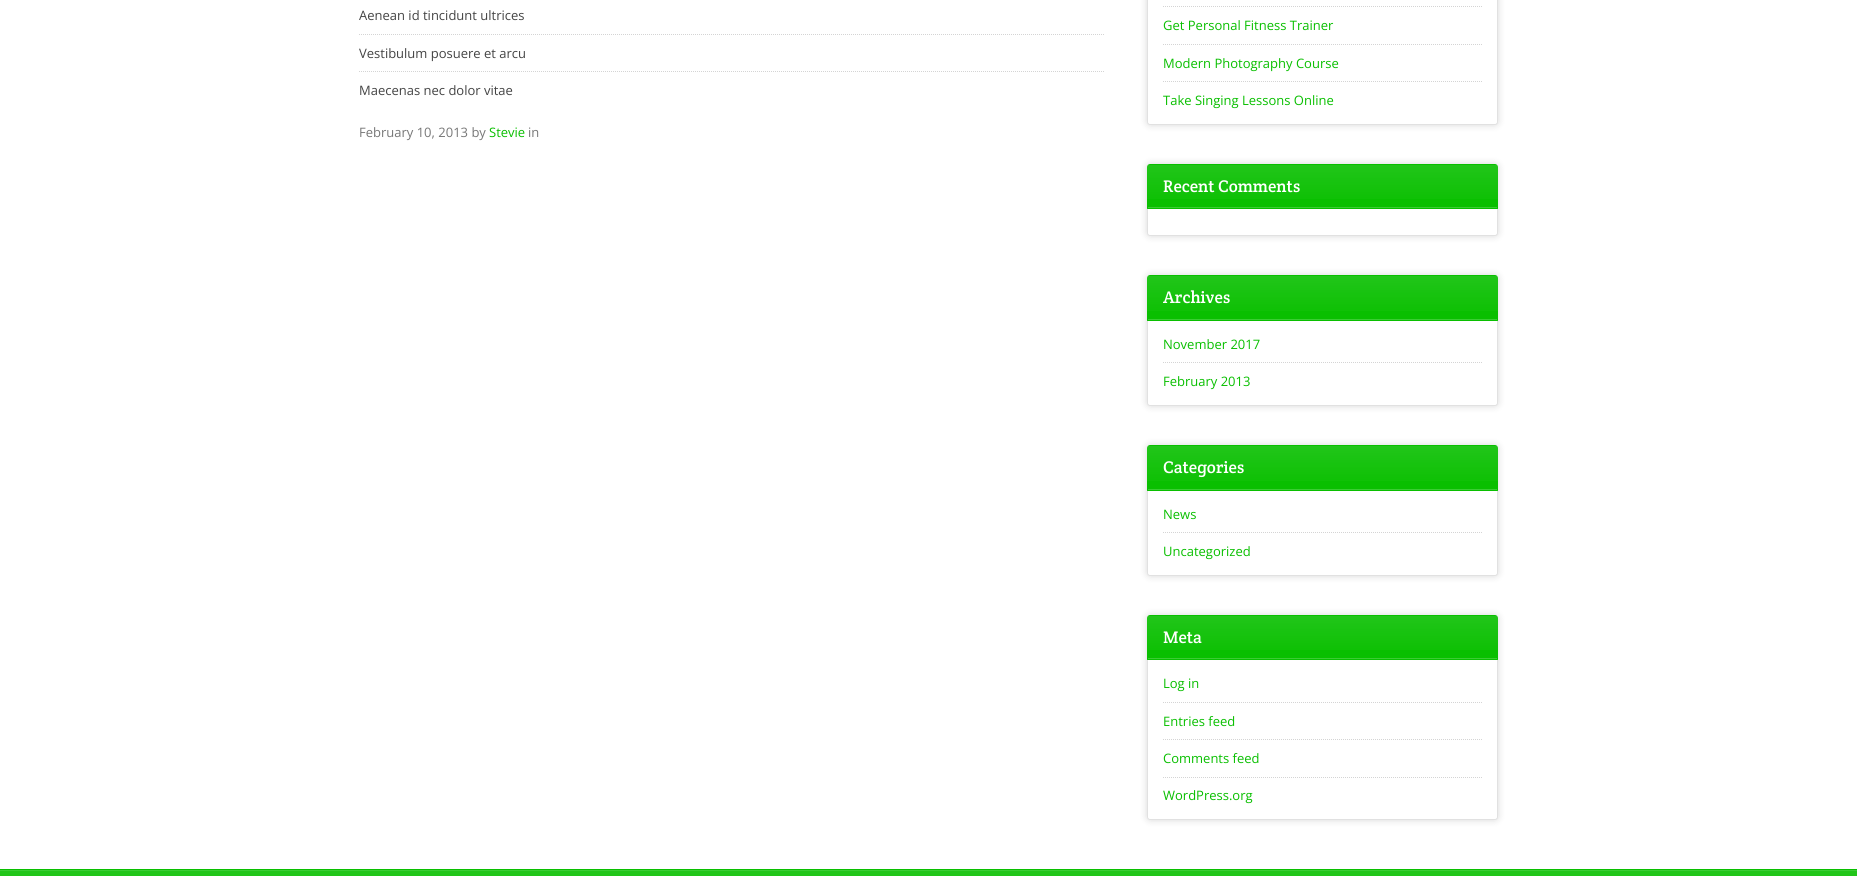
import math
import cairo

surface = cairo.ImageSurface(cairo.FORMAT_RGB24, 1857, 876)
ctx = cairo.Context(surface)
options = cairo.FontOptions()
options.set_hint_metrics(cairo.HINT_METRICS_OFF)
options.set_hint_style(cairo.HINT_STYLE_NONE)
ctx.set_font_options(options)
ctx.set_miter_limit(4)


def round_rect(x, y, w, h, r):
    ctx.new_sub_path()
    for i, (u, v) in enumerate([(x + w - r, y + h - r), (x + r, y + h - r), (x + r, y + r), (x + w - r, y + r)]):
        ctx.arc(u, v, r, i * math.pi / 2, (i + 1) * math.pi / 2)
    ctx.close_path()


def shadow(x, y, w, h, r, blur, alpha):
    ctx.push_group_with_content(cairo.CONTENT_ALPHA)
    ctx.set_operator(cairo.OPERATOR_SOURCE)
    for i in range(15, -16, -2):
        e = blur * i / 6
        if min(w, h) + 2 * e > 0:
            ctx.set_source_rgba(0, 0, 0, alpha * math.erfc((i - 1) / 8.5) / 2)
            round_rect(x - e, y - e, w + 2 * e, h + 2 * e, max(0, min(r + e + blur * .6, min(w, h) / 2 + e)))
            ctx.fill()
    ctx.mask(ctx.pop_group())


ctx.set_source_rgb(1, 1, 1)
ctx.paint()
ctx.new_path()
ctx.move_to(359, 34.5)
ctx.line_to(1104, 34.5)
ctx.set_source_rgb(0.831, 0.831, 0.831)
ctx.set_line_width(1)
ctx.set_dash([1, 1])
ctx.stroke()
ctx.select_font_face("Open Sans")
ctx.set_font_size(13)
ctx.set_source_rgb(0.267, 0.267, 0.267)
ctx.move_to(359, 20)
ctx.show_text("Aenean id tincidunt ultrices")
ctx.new_path()
ctx.move_to(359, 71.5)
ctx.line_to(1104, 71.5)
ctx.set_source_rgb(0.831, 0.831, 0.831)
ctx.stroke()
ctx.set_source_rgb(0.267, 0.267, 0.267)
ctx.move_to(359, 58)
ctx.show_text("Vestibulum posuere et arcu")
ctx.move_to(359, 95)
ctx.show_text("Maecenas nec dolor vitae")
ctx.set_source_rgb(0.467, 0.467, 0.467)
ctx.move_to(359, 137)
ctx.show_text("February 10, 2013 by")
ctx.set_source_rgb(0.039, 0.749, 0)
ctx.move_to(489, 137)
ctx.show_text("Stevie")
ctx.set_source_rgb(0.467, 0.467, 0.467)
ctx.move_to(528, 137)
ctx.show_text("in")
ctx.set_source_rgb(0, 0, 0)
shadow(1147, -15, 351, 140, 3, 4, 0.15)
ctx.set_source_rgb(1, 1, 1)
round_rect(1147.5, -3.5, 350, 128, 2.5)
ctx.fill_preserve()
ctx.set_source_rgb(0.882, 0.882, 0.882)
ctx.set_dash([])
ctx.stroke()
ctx.new_path()
ctx.move_to(1163, 6.5)
ctx.line_to(1482, 6.5)
ctx.set_source_rgb(0.831, 0.831, 0.831)
ctx.set_dash([1, 1])
ctx.stroke()
ctx.new_path()
ctx.move_to(1163, 44.5)
ctx.line_to(1482, 44.5)
ctx.stroke()
ctx.set_source_rgb(0.039, 0.749, 0)
ctx.move_to(1163, 30)
ctx.show_text("Get Personal Fitness Trainer")
ctx.new_path()
ctx.move_to(1163, 81.5)
ctx.line_to(1482, 81.5)
ctx.set_source_rgb(0.831, 0.831, 0.831)
ctx.stroke()
ctx.set_source_rgb(0.039, 0.749, 0)
ctx.move_to(1163, 68)
ctx.show_text("Modern Photography Course")
ctx.move_to(1163, 105)
ctx.show_text("Take Singing Lessons Online")
ctx.set_source_rgb(0, 0, 0)
shadow(1147, 164, 351, 72, 3, 4, 0.15)
ctx.set_source_rgb(1, 1, 1)
round_rect(1147.5, 164.5, 350, 71, 2.5)
ctx.fill_preserve()
ctx.set_source_rgb(0.882, 0.882, 0.882)
ctx.set_dash([])
ctx.stroke()
ctx.set_source_rgb(0.039, 0.749, 0)
ctx.new_path()
ctx.move_to(1150, 164)
ctx.line_to(1495, 164)
ctx.curve_to(1496.5, 164, 1498, 165.5, 1498, 167)
ctx.line_to(1498, 209)
ctx.line_to(1147, 209)
ctx.line_to(1147, 167)
ctx.curve_to(1147, 165.5, 1148.5, 164, 1150, 164)
ctx.close_path()
ctx.fill()
gradient = cairo.LinearGradient(1323, 165, 1323, 208)
gradient.add_color_stop_rgba(0, 1, 1, 1, 0.1)
gradient.add_color_stop_rgba(1, 1, 1, 1, 0)
ctx.set_source(gradient)
ctx.rectangle(1147, 165, 351, 34)
ctx.fill()
gradient = cairo.LinearGradient(1323, 208, 1323, 251)
gradient.add_color_stop_rgba(0, 0.137, 0.773, 0.102, 1)
gradient.add_color_stop_rgba(1, 0.039, 0.749, 0, 1)
ctx.set_source(gradient)
ctx.rectangle(1147, 208, 351, 1)
ctx.fill()
ctx.set_source_rgb(0.039, 0.749, 0)
ctx.new_path()
ctx.move_to(1498, 209)
ctx.line_to(1497, 208)
ctx.line_to(1148, 208)
ctx.line_to(1147, 209)
ctx.close_path()
ctx.fill()
ctx.select_font_face("Crete Round")
ctx.set_font_size(17)
ctx.set_source_rgb(1, 1, 1)
ctx.move_to(1163, 192)
ctx.show_text("Recent Comments")
ctx.set_source_rgb(0.231, 0.8, 0.2)
ctx.rectangle(1148, 207, 349, 1)
ctx.fill()
ctx.set_source_rgb(0, 0, 0)
shadow(1147, 275, 351, 131, 3, 4, 0.15)
ctx.set_source_rgb(1, 1, 1)
round_rect(1147.5, 275.5, 350, 130, 2.5)
ctx.fill_preserve()
ctx.set_source_rgb(0.882, 0.882, 0.882)
ctx.stroke()
ctx.set_source_rgb(0.039, 0.749, 0)
ctx.new_path()
ctx.move_to(1150, 275)
ctx.line_to(1495, 275)
ctx.curve_to(1496.5, 275, 1498, 276.5, 1498, 278)
ctx.line_to(1498, 321)
ctx.line_to(1147, 321)
ctx.line_to(1147, 278)
ctx.curve_to(1147, 276.5, 1148.5, 275, 1150, 275)
ctx.close_path()
ctx.fill()
gradient = cairo.LinearGradient(1323, 276, 1323, 320)
gradient.add_color_stop_rgba(0, 1, 1, 1, 0.1)
gradient.add_color_stop_rgba(1, 1, 1, 1, 0)
ctx.set_source(gradient)
ctx.rectangle(1147, 276, 351, 35)
ctx.fill()
gradient = cairo.LinearGradient(1323, 320, 1323, 364)
gradient.add_color_stop_rgba(0, 0.137, 0.773, 0.102, 1)
gradient.add_color_stop_rgba(1, 0.039, 0.749, 0, 1)
ctx.set_source(gradient)
ctx.rectangle(1147, 320, 351, 1)
ctx.fill()
ctx.set_source_rgb(0.039, 0.749, 0)
ctx.new_path()
ctx.move_to(1498, 321)
ctx.line_to(1497, 320)
ctx.line_to(1148, 320)
ctx.line_to(1147, 321)
ctx.close_path()
ctx.fill()
ctx.set_source_rgb(1, 1, 1)
ctx.move_to(1163, 303)
ctx.show_text("Archives")
ctx.set_source_rgb(0.231, 0.8, 0.2)
ctx.rectangle(1148, 319, 349, 1)
ctx.fill()
ctx.new_path()
ctx.move_to(1163, 362.5)
ctx.line_to(1482, 362.5)
ctx.set_source_rgb(0.831, 0.831, 0.831)
ctx.set_dash([1, 1])
ctx.stroke()
ctx.select_font_face("Open Sans")
ctx.set_font_size(13)
ctx.set_source_rgb(0.039, 0.749, 0)
ctx.move_to(1163, 349)
ctx.show_text("November 2017")
ctx.move_to(1163, 386)
ctx.show_text("February 2013")
ctx.set_source_rgb(0, 0, 0)
shadow(1147, 445, 351, 131, 3, 4, 0.15)
ctx.set_source_rgb(1, 1, 1)
round_rect(1147.5, 445.5, 350, 130, 2.5)
ctx.fill_preserve()
ctx.set_source_rgb(0.882, 0.882, 0.882)
ctx.set_dash([])
ctx.stroke()
ctx.set_source_rgb(0.039, 0.749, 0)
ctx.new_path()
ctx.move_to(1150, 445)
ctx.line_to(1495, 445)
ctx.curve_to(1496.5, 445, 1498, 446.5, 1498, 448)
ctx.line_to(1498, 491)
ctx.line_to(1147, 491)
ctx.line_to(1147, 448)
ctx.curve_to(1147, 446.5, 1148.5, 445, 1150, 445)
ctx.close_path()
ctx.fill()
gradient = cairo.LinearGradient(1323, 446, 1323, 490)
gradient.add_color_stop_rgba(0, 1, 1, 1, 0.1)
gradient.add_color_stop_rgba(1, 1, 1, 1, 0)
ctx.set_source(gradient)
ctx.rectangle(1147, 446, 351, 35)
ctx.fill()
gradient = cairo.LinearGradient(1323, 490, 1323, 534)
gradient.add_color_stop_rgba(0, 0.137, 0.773, 0.102, 1)
gradient.add_color_stop_rgba(1, 0.039, 0.749, 0, 1)
ctx.set_source(gradient)
ctx.rectangle(1147, 490, 351, 1)
ctx.fill()
ctx.set_source_rgb(0.039, 0.749, 0)
ctx.new_path()
ctx.move_to(1498, 491)
ctx.line_to(1497, 490)
ctx.line_to(1148, 490)
ctx.line_to(1147, 491)
ctx.close_path()
ctx.fill()
ctx.select_font_face("Crete Round")
ctx.set_font_size(17)
ctx.set_source_rgb(1, 1, 1)
ctx.move_to(1163, 473)
ctx.show_text("Categories")
ctx.set_source_rgb(0.231, 0.8, 0.2)
ctx.rectangle(1148, 489, 349, 1)
ctx.fill()
ctx.new_path()
ctx.move_to(1163, 532.5)
ctx.line_to(1482, 532.5)
ctx.set_source_rgb(0.831, 0.831, 0.831)
ctx.set_dash([1, 1])
ctx.stroke()
ctx.select_font_face("Open Sans")
ctx.set_font_size(13)
ctx.set_source_rgb(0.039, 0.749, 0)
ctx.move_to(1163, 519)
ctx.show_text("News")
ctx.move_to(1163, 556)
ctx.show_text("Uncategorized")
ctx.set_source_rgb(0, 0, 0)
shadow(1147, 615, 351, 205, 3, 4, 0.15)
ctx.set_source_rgb(1, 1, 1)
round_rect(1147.5, 615.5, 350, 204, 2.5)
ctx.fill_preserve()
ctx.set_source_rgb(0.882, 0.882, 0.882)
ctx.set_dash([])
ctx.stroke()
ctx.set_source_rgb(0.039, 0.749, 0)
ctx.new_path()
ctx.move_to(1150, 615)
ctx.line_to(1495, 615)
ctx.curve_to(1496.5, 615, 1498, 616.5, 1498, 618)
ctx.line_to(1498, 660)
ctx.line_to(1147, 660)
ctx.line_to(1147, 618)
ctx.curve_to(1147, 616.5, 1148.5, 615, 1150, 615)
ctx.close_path()
ctx.fill()
gradient = cairo.LinearGradient(1323, 616, 1323, 659)
gradient.add_color_stop_rgba(0, 1, 1, 1, 0.1)
gradient.add_color_stop_rgba(1, 1, 1, 1, 0)
ctx.set_source(gradient)
ctx.rectangle(1147, 616, 351, 34)
ctx.fill()
gradient = cairo.LinearGradient(1323, 659, 1323, 702)
gradient.add_color_stop_rgba(0, 0.137, 0.773, 0.102, 1)
gradient.add_color_stop_rgba(1, 0.039, 0.749, 0, 1)
ctx.set_source(gradient)
ctx.rectangle(1147, 659, 351, 1)
ctx.fill()
ctx.set_source_rgb(0.039, 0.749, 0)
ctx.new_path()
ctx.move_to(1498, 660)
ctx.line_to(1497, 659)
ctx.line_to(1148, 659)
ctx.line_to(1147, 660)
ctx.close_path()
ctx.fill()
ctx.select_font_face("Crete Round")
ctx.set_font_size(17)
ctx.set_source_rgb(1, 1, 1)
ctx.move_to(1163, 643)
ctx.show_text("Meta")
ctx.set_source_rgb(0.231, 0.8, 0.2)
ctx.rectangle(1148, 658, 349, 1)
ctx.fill()
ctx.new_path()
ctx.move_to(1163, 702.5)
ctx.line_to(1482, 702.5)
ctx.set_source_rgb(0.831, 0.831, 0.831)
ctx.set_dash([1, 1])
ctx.stroke()
ctx.select_font_face("Open Sans")
ctx.set_font_size(13)
ctx.set_source_rgb(0.039, 0.749, 0)
ctx.move_to(1163, 688)
ctx.show_text("Log in")
ctx.new_path()
ctx.move_to(1163, 739.5)
ctx.line_to(1482, 739.5)
ctx.set_source_rgb(0.831, 0.831, 0.831)
ctx.stroke()
ctx.set_source_rgb(0.039, 0.749, 0)
ctx.move_to(1163, 726)
ctx.show_text("Entries feed")
ctx.new_path()
ctx.move_to(1163, 777.5)
ctx.line_to(1482, 777.5)
ctx.set_source_rgb(0.831, 0.831, 0.831)
ctx.stroke()
ctx.set_source_rgb(0.039, 0.749, 0)
ctx.move_to(1163, 763)
ctx.show_text("Comments feed")
ctx.move_to(1163, 800)
ctx.show_text("WordPress.org")
gradient = cairo.LinearGradient(929, 871, 929, 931)
gradient.add_color_stop_rgba(0, 0.137, 0.773, 0.102, 1)
gradient.add_color_stop_rgba(1, 0.039, 0.749, 0, 1)
ctx.set_source(gradient)
ctx.rectangle(0, 871, 1857, 5)
ctx.fill()
ctx.set_source_rgb(0.231, 0.8, 0.2)
ctx.rectangle(0, 870, 1857, 1)
ctx.fill()
ctx.set_source_rgb(0.039, 0.749, 0)
ctx.rectangle(0, 869, 1857, 1)
ctx.fill()
surface.write_to_png("page.png")
